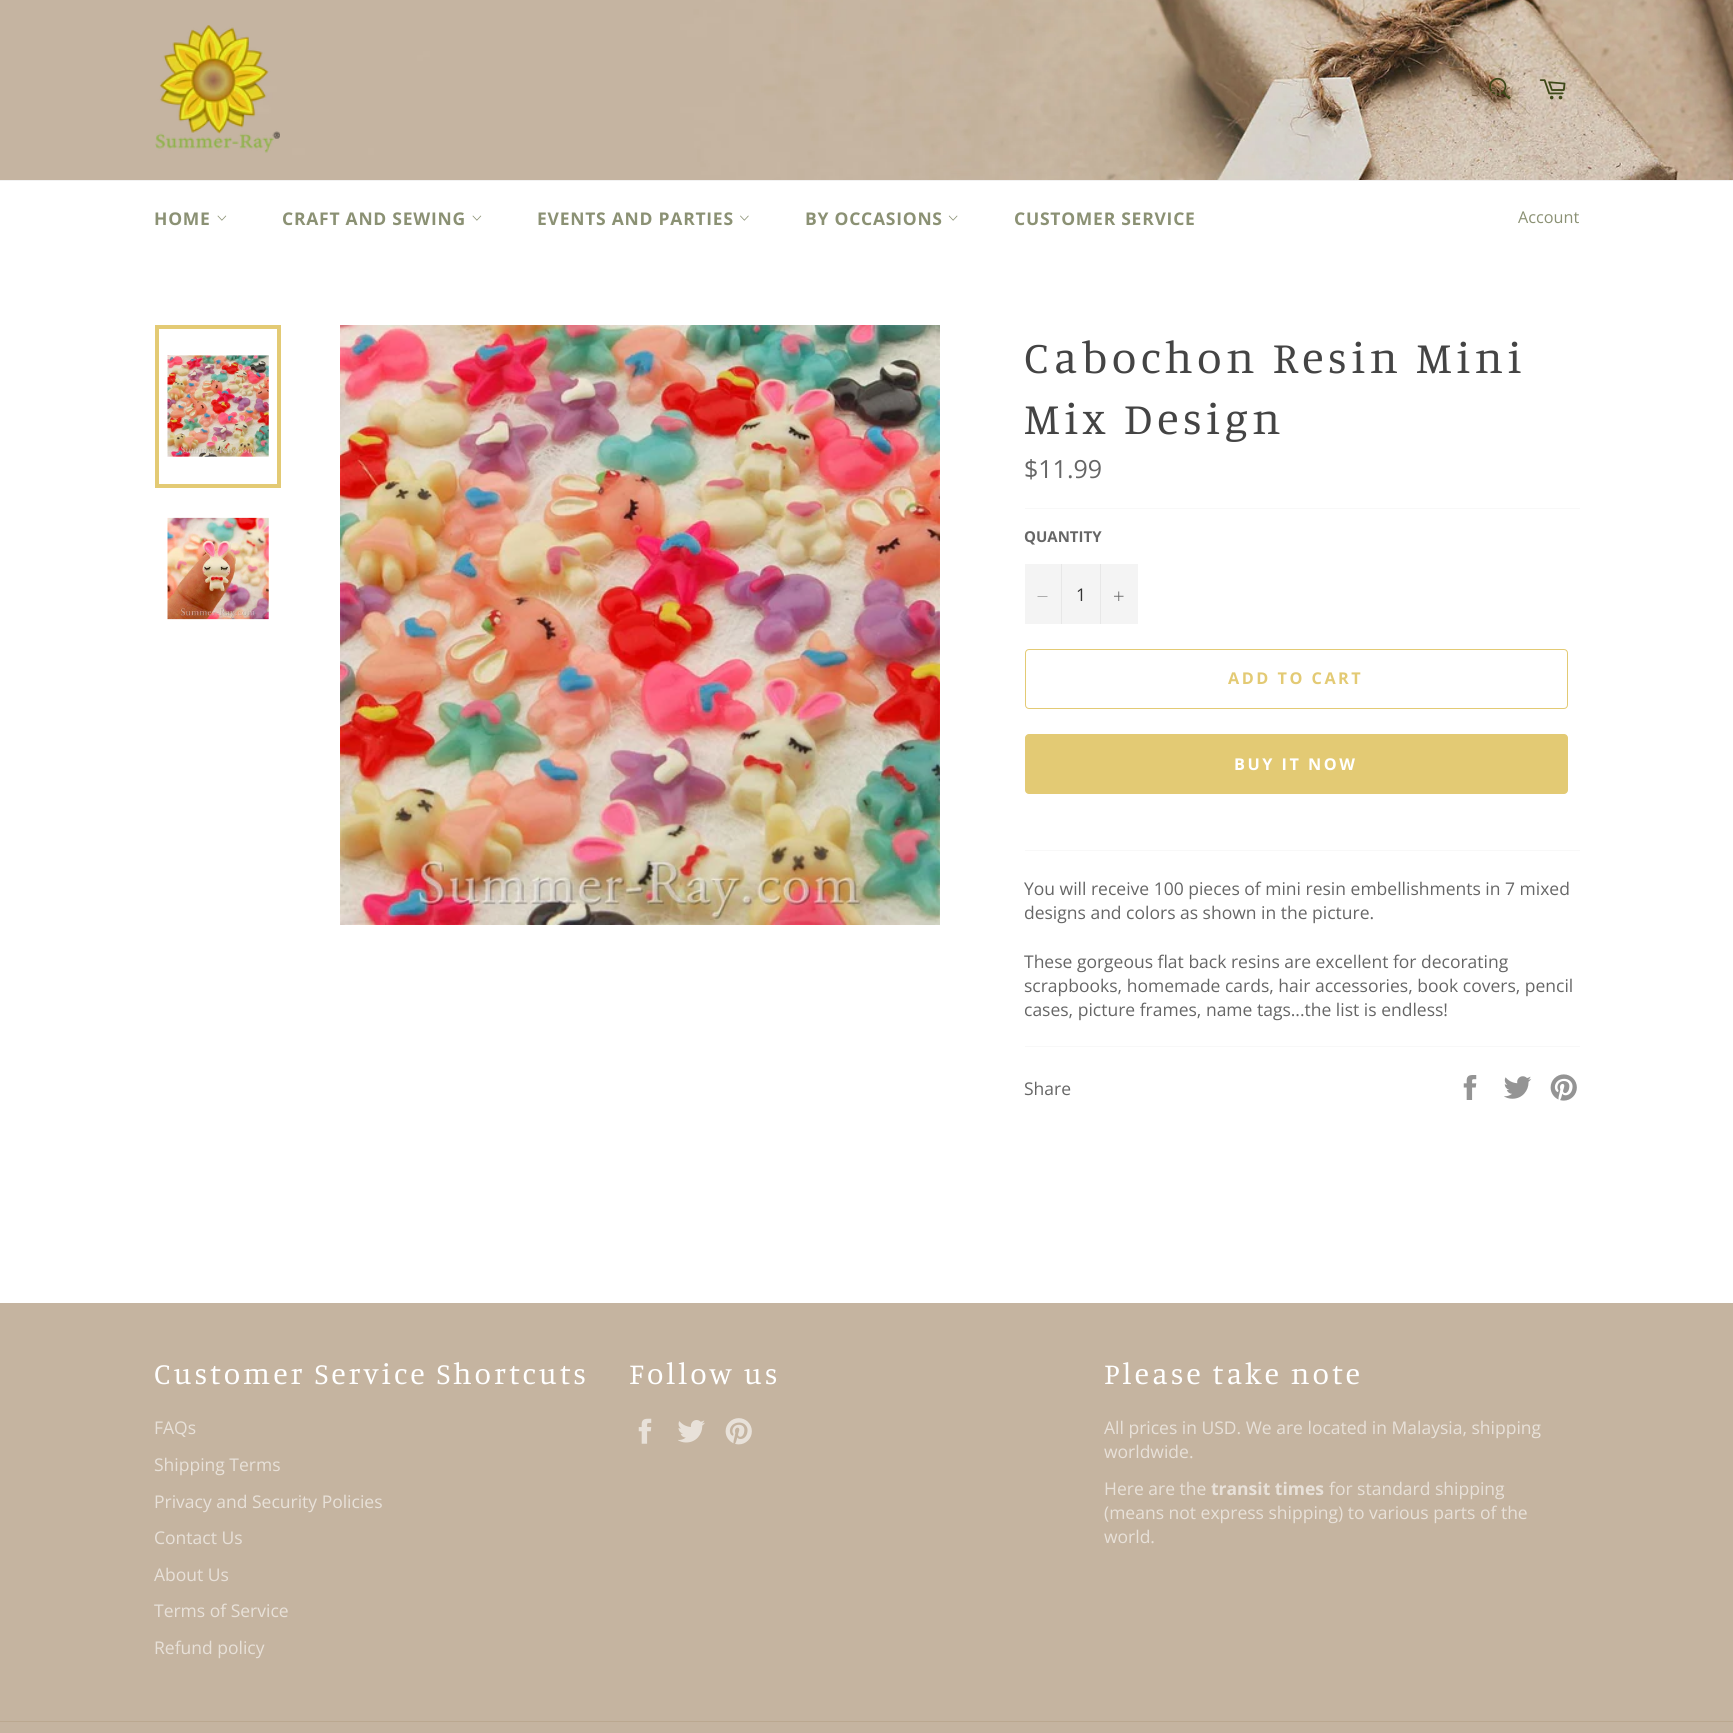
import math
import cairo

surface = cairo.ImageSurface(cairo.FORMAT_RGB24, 1733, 1733)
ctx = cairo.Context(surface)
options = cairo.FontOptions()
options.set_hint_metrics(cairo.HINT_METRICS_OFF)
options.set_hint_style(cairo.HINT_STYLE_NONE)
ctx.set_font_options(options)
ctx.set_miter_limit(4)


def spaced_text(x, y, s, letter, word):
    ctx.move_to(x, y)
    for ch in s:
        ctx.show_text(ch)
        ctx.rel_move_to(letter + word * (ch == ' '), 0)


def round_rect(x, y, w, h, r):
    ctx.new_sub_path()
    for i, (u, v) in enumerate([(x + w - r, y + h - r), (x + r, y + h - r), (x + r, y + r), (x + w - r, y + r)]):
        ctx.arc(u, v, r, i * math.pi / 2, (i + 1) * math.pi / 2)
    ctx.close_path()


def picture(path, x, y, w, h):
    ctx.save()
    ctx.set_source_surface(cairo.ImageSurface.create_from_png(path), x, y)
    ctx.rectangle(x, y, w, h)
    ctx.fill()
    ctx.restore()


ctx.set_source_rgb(1, 1, 1)
ctx.paint()
picture("img1.png", 0, 0, 1733, 180)
picture("img2.png", 155, 25, 125, 128)
picture("img3.png", 1489, 77, 22, 23)
ctx.save()
ctx.rectangle(1470, 79, 40, 22)
ctx.clip()
ctx.select_font_face("Open Sans")
ctx.set_font_size(16.25)
ctx.set_source_rgb(0.514, 0.42, 0.31)
ctx.move_to(1471, 96)
ctx.show_text("Searc")
ctx.restore()
picture("img4.png", 1539, 79, 27, 21)
ctx.set_source_rgb(0.949, 0.949, 0.949)
ctx.rectangle(0, 180, 1733, 1)
ctx.fill()
ctx.select_font_face("Open Sans", cairo.FONT_SLANT_NORMAL, cairo.FONT_WEIGHT_BOLD)
ctx.set_font_size(17.5)
ctx.set_source_rgb(0.545, 0.569, 0.455)
spaced_text(154, 225, "HOME", 0.75, 0)
picture("img5.png", 217, 215, 10, 6)
spaced_text(282, 225, "CRAFT AND SEWING", 0.75, 0)
picture("img5.png", 472, 215, 10, 6)
spaced_text(537, 225, "EVENTS AND PARTIES", 0.75, 0)
picture("img6.png", 740, 215, 9, 6)
spaced_text(805, 225, "BY OCCASIONS", 0.75, 0)
picture("img7.png", 948, 215, 10, 6)
spaced_text(1014, 225, "CUSTOMER SERVICE", 0.75, 0)
ctx.select_font_face("Open Sans")
ctx.set_font_size(16.25)
ctx.move_to(1518, 223)
ctx.show_text("Account")
picture("img8.png", 167, 355, 102, 102)
ctx.rectangle(157, 327, 122, 159)
ctx.set_source_rgb(0.89, 0.792, 0.455)
ctx.set_line_width(4)
ctx.stroke()
picture("img9.png", 167, 517, 102, 103)
picture("img10.png", 340, 325, 600, 600)
ctx.select_font_face("Manuale")
ctx.set_font_size(45)
ctx.set_source_rgb(0.267, 0.267, 0.267)
spaced_text(1024, 373, "Cabochon Resin Mini", 4.5, 0)
spaced_text(1024, 434, "Mix Design", 4.5, 0)
ctx.select_font_face("Open Sans")
ctx.set_font_size(25)
ctx.set_source_rgb(0.4, 0.4, 0.4)
ctx.move_to(1024, 478)
ctx.show_text("$11.99")
ctx.set_source_rgb(0.969, 0.969, 0.969)
ctx.rectangle(1025, 508, 555, 1)
ctx.fill()
ctx.select_font_face("Open Sans", cairo.FONT_SLANT_NORMAL, cairo.FONT_WEIGHT_BOLD)
ctx.set_font_size(15)
ctx.set_source_rgb(0.4, 0.4, 0.4)
ctx.move_to(1024, 542)
ctx.show_text("QUANTITY")
ctx.set_source_rgb(0.957, 0.957, 0.957)
ctx.rectangle(1025, 564, 113, 60)
ctx.fill()
ctx.set_source_rgb(0.906, 0.906, 0.906)
ctx.rectangle(1061, 564, 1, 60)
ctx.fill()
ctx.set_source_rgb(0.4, 0.4, 0.4)
ctx.set_fill_rule(cairo.FILL_RULE_EVEN_ODD)
ctx.new_path()
ctx.move_to(1047.5, 596)
ctx.line_to(1047.5, 596.5)
ctx.line_to(1037.5, 596.5)
ctx.line_to(1037.5, 596)
ctx.close_path()
ctx.fill()
ctx.select_font_face("Open Sans")
ctx.set_font_size(17.5)
ctx.set_source_rgb(0.2, 0.2, 0.2)
ctx.move_to(1076, 601)
ctx.show_text("1")
ctx.set_source_rgb(0.906, 0.906, 0.906)
ctx.rectangle(1100, 564, 1, 60)
ctx.fill()
picture("img11.png", 1114, 591, 10, 10)
round_rect(1025.5, 649.5, 542, 59, 3.5)
ctx.set_source_rgb(0.89, 0.792, 0.455)
ctx.set_line_width(1)
ctx.stroke()
ctx.select_font_face("Open Sans", cairo.FONT_SLANT_NORMAL, cairo.FONT_WEIGHT_BOLD)
ctx.set_font_size(16.25)
spaced_text(1228, 684, "ADD TO CART", 2.5, 0)
round_rect(1025, 734, 543, 60, 4)
ctx.fill()
ctx.set_source_rgb(1, 1, 1)
spaced_text(1234, 770, "BUY IT NOW", 2.5, 0)
ctx.set_source_rgb(0.969, 0.969, 0.969)
ctx.rectangle(1025, 850, 555, 1)
ctx.fill()
ctx.select_font_face("Open Sans")
ctx.set_font_size(17.5)
ctx.set_source_rgb(0.4, 0.4, 0.4)
ctx.move_to(1024, 895)
ctx.show_text("You will receive 100 pieces of mini resin embellishments in 7 mixed")
ctx.move_to(1024, 919)
ctx.show_text("designs and colors as shown in the picture.")
ctx.move_to(1024, 968)
ctx.show_text("These gorgeous flat back resins are excellent for decorating")
ctx.move_to(1024, 992)
ctx.show_text("scrapbooks, homemade cards, hair accessories, book covers, pencil")
ctx.move_to(1024, 1016)
ctx.show_text("cases, picture frames, name tags...the list is endless!")
ctx.set_source_rgb(0.969, 0.969, 0.969)
ctx.rectangle(1025, 1046, 555, 1)
ctx.fill()
ctx.set_source_rgb(0.4, 0.4, 0.4)
ctx.move_to(1024, 1095)
ctx.show_text("Share")
picture("img12.png", 1463, 1075, 14, 25)
picture("img13.png", 1504, 1076, 28, 23)
picture("img14.png", 1550, 1074, 27, 27)
ctx.set_source_rgb(0.773, 0.706, 0.627)
ctx.rectangle(0, 1303, 1733, 430)
ctx.fill()
ctx.select_font_face("Manuale")
ctx.set_font_size(30)
ctx.set_source_rgb(1, 1, 1)
spaced_text(154, 1384, "Customer Service Shortcuts", 3, 0)
ctx.select_font_face("Open Sans")
ctx.set_font_size(17.5)
ctx.set_source_rgb(0.91, 0.882, 0.851)
ctx.move_to(154, 1434)
ctx.show_text("FAQs")
ctx.move_to(154, 1471)
ctx.show_text("Shipping Terms")
ctx.move_to(154, 1508)
ctx.show_text("Privacy and Security Policies")
ctx.move_to(154, 1544)
ctx.show_text("Contact Us")
ctx.move_to(154, 1581)
ctx.show_text("About Us")
ctx.move_to(154, 1617)
ctx.show_text("Terms of Service")
ctx.move_to(154, 1654)
ctx.show_text("Refund policy")
ctx.select_font_face("Manuale")
ctx.set_font_size(30)
ctx.set_source_rgb(1, 1, 1)
spaced_text(629, 1384, "Follow us", 3, 0)
picture("img15.png", 638, 1418, 14, 26)
picture("img16.png", 678, 1420, 27, 23)
picture("img17.png", 725, 1418, 27, 27)
spaced_text(1104, 1384, "Please take note", 3, 0)
ctx.select_font_face("Open Sans")
ctx.set_font_size(17.5)
ctx.set_source_rgb(0.91, 0.882, 0.851)
ctx.move_to(1104, 1434)
ctx.show_text("All prices in USD. We are located in Malaysia, shipping")
ctx.move_to(1104, 1458)
ctx.show_text("worldwide.")
ctx.move_to(1104, 1495)
ctx.show_text("Here are the")
ctx.select_font_face("Open Sans", cairo.FONT_SLANT_NORMAL, cairo.FONT_WEIGHT_BOLD)
ctx.move_to(1211, 1495)
ctx.show_text("transit times")
ctx.select_font_face("Open Sans")
ctx.move_to(1329, 1495)
ctx.show_text("for standard shipping")
ctx.move_to(1104, 1519)
ctx.show_text("(means not express shipping) to various parts of the")
ctx.move_to(1104, 1543)
ctx.show_text("world.")
ctx.set_source_rgb(0.733, 0.659, 0.565)
ctx.rectangle(0, 1721, 1733, 1)
ctx.fill()
surface.write_to_png("page.png")
